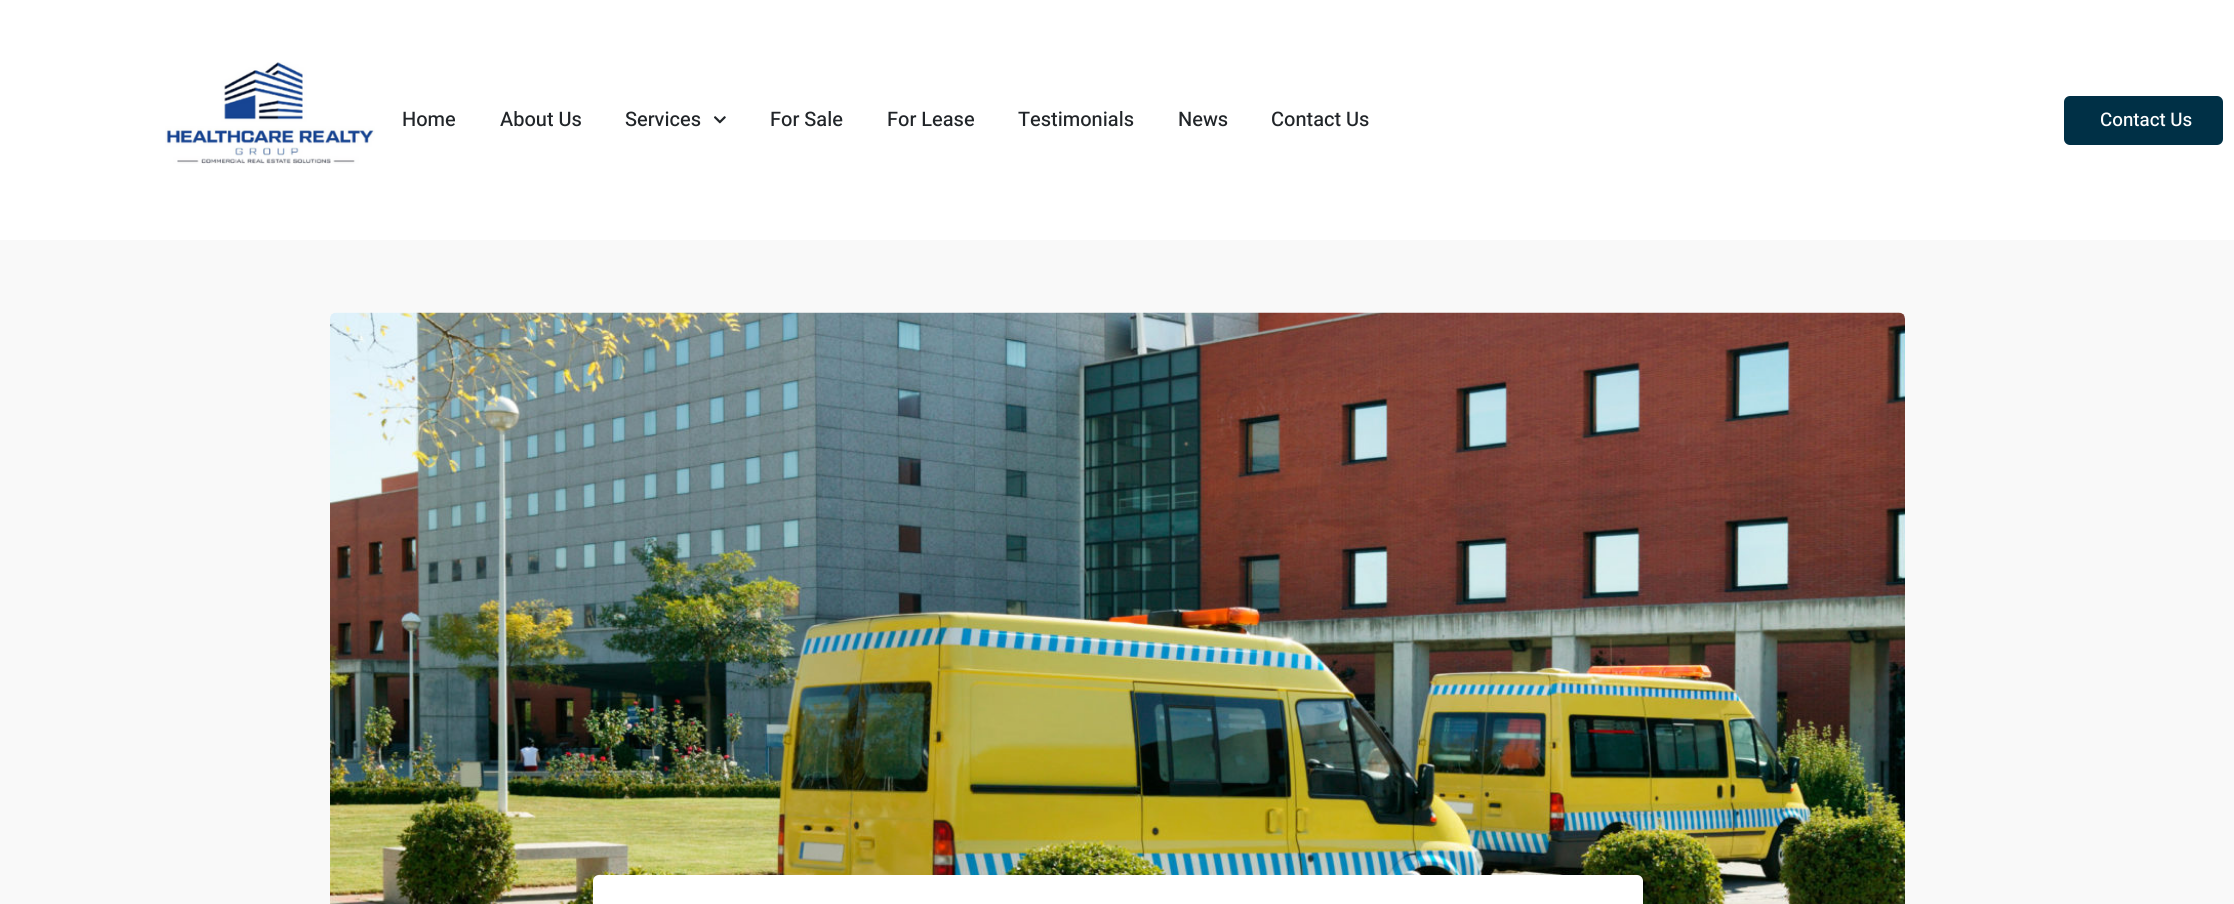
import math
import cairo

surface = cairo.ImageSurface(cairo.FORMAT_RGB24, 2234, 904)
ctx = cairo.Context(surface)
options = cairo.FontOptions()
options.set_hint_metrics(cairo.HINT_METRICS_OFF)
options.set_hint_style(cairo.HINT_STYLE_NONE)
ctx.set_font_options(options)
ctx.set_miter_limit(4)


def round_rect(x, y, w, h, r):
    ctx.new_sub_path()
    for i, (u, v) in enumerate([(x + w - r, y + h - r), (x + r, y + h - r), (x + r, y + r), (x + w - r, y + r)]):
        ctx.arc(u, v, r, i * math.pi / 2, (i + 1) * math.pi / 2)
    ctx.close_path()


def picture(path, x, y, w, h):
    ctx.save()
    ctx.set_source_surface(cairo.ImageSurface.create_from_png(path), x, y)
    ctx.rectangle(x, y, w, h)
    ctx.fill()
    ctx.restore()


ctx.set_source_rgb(0.973, 0.973, 0.973)
ctx.paint()
ctx.set_source_rgb(1, 1, 1)
ctx.rectangle(0, 0, 2234, 240)
ctx.fill()
picture("img1.png", 165, 62, 210, 102)
ctx.select_font_face("Heebo Medium")
ctx.set_font_size(20)
ctx.set_source_rgb(0.129, 0.145, 0.161)
ctx.move_to(402, 126)
ctx.show_text("Home")
ctx.move_to(500, 126)
ctx.show_text("About Us")
ctx.move_to(625, 126)
ctx.show_text("Services")
picture("img2.png", 714, 116, 12, 8)
ctx.move_to(770, 126)
ctx.show_text("For Sale")
ctx.move_to(887, 126)
ctx.show_text("For Lease")
ctx.move_to(1018, 126)
ctx.show_text("Testimonials")
ctx.move_to(1178, 126)
ctx.show_text("News")
ctx.move_to(1271, 126)
ctx.show_text("Contact Us")
ctx.set_source_rgb(0, 0.188, 0.275)
round_rect(2064, 96, 159, 49, 6)
ctx.fill()
ctx.set_font_size(18.75)
ctx.set_source_rgb(1, 1, 1)
ctx.move_to(2100, 126)
ctx.show_text("Contact Us")
picture("img3.png", 330, 312, 1575, 592)
round_rect(593, 875, 1050, 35, 6)
ctx.fill()
surface.write_to_png("page.png")
